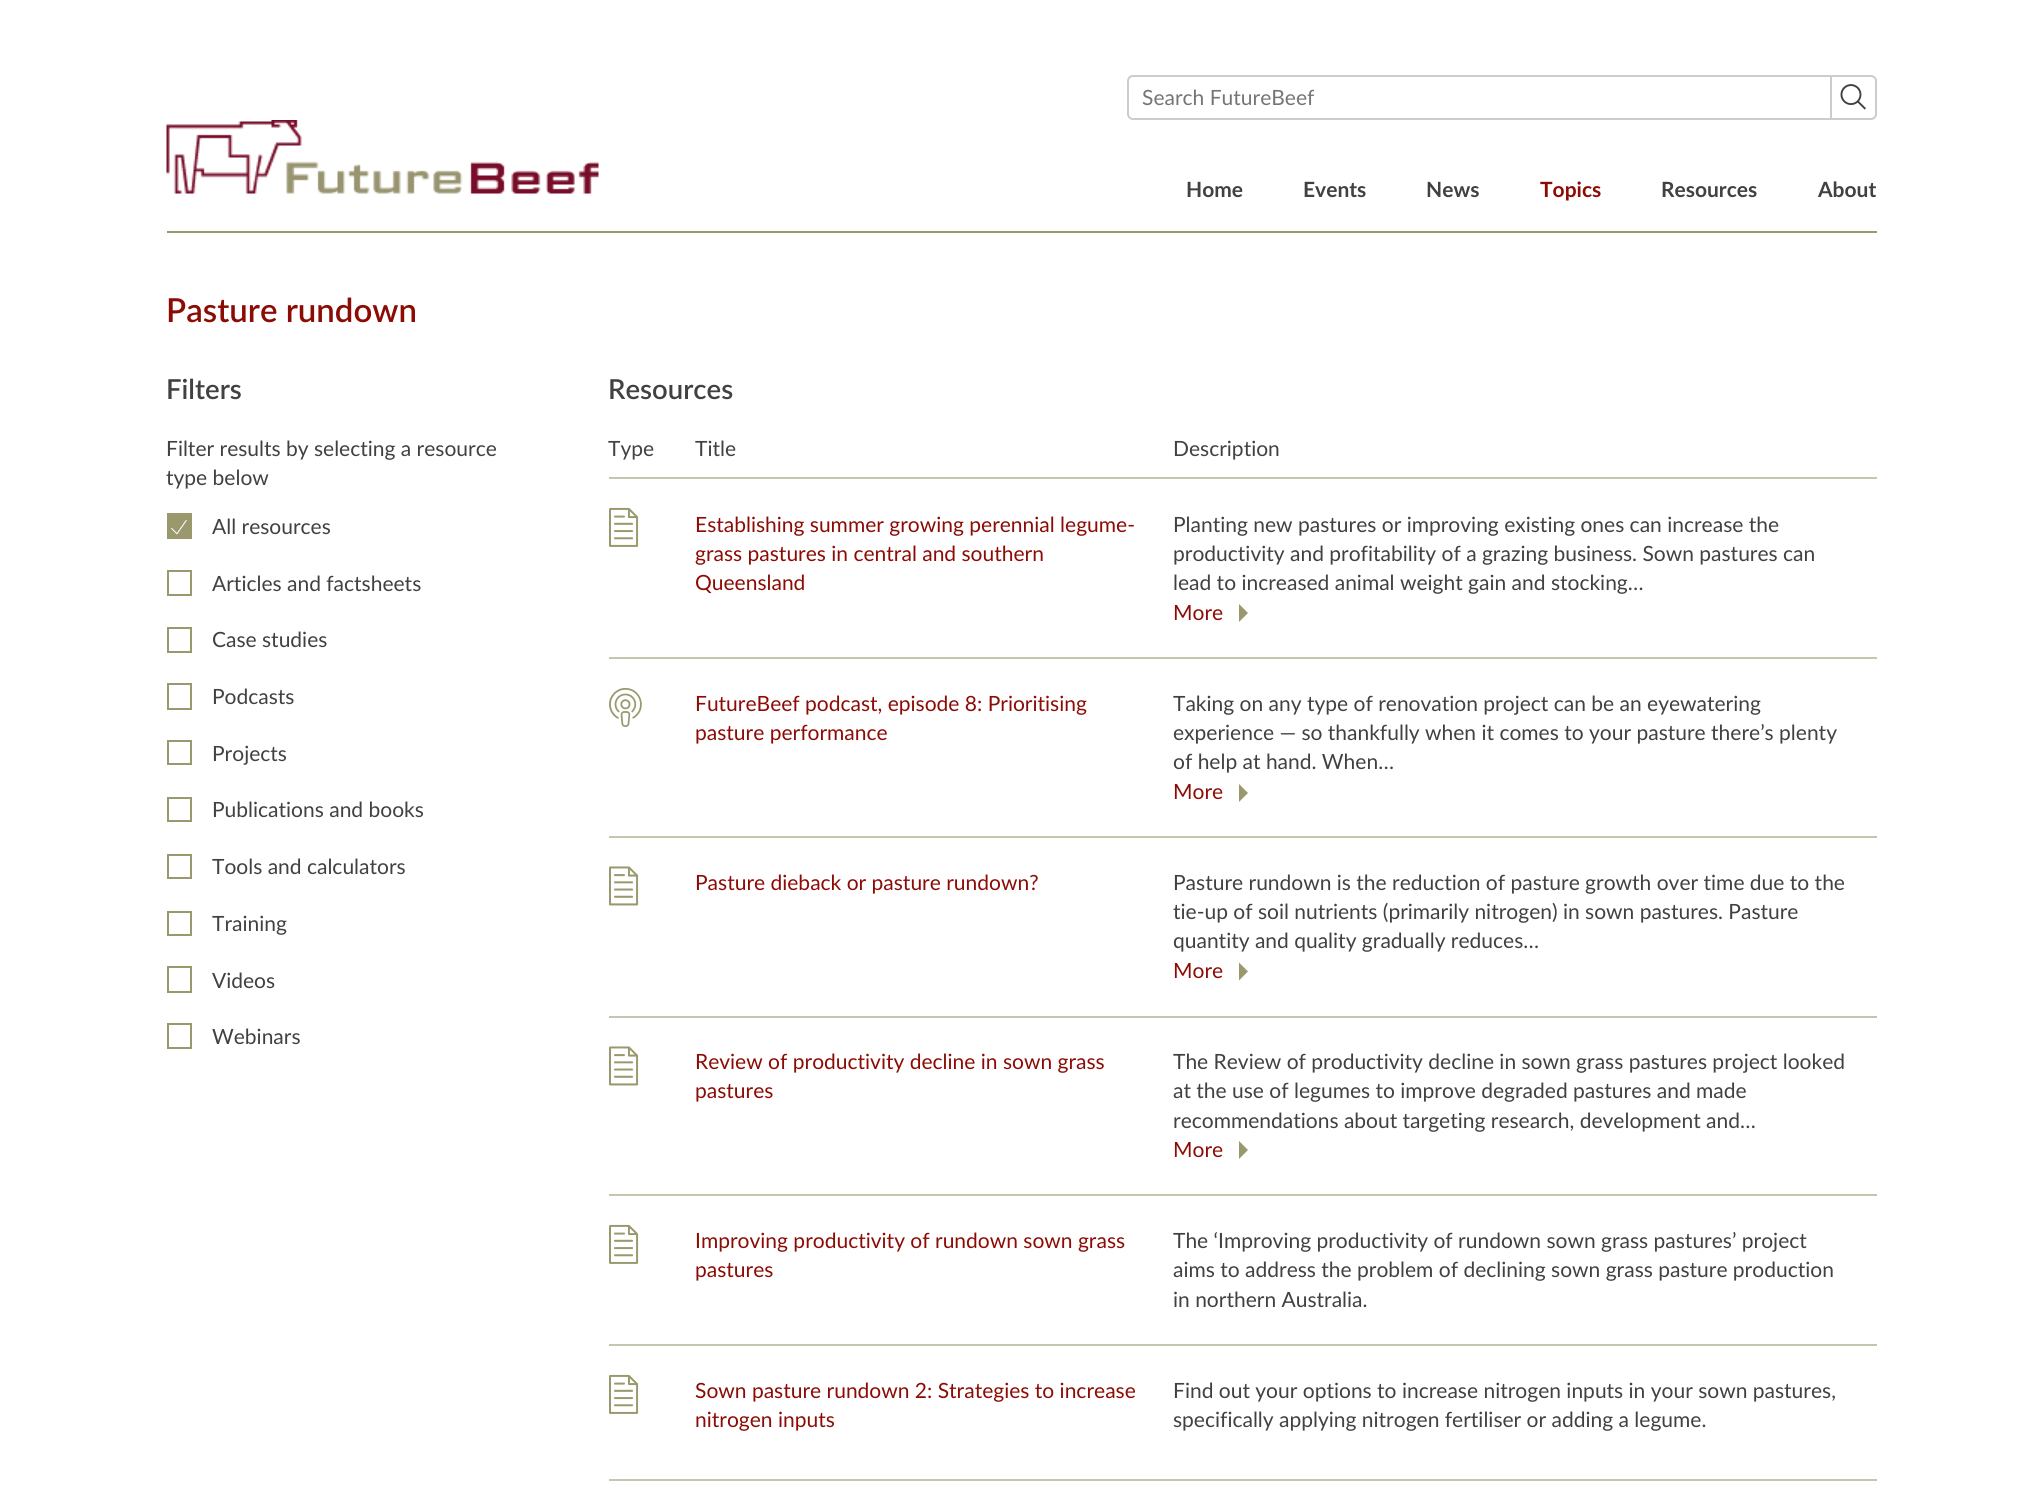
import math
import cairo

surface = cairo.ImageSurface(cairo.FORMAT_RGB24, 2041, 1504)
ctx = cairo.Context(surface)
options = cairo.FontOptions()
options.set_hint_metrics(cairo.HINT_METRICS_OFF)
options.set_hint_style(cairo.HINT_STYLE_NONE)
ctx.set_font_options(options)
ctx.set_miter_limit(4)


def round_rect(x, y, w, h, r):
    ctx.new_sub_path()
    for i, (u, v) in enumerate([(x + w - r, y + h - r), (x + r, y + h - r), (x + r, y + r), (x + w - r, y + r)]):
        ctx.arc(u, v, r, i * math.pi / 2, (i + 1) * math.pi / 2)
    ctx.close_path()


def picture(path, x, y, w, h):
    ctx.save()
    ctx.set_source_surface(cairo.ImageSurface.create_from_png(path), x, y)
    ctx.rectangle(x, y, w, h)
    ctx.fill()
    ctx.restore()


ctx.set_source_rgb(1, 1, 1)
ctx.paint()
round_rect(1128, 76, 748, 43, 5)
ctx.set_source_rgb(0.8, 0.8, 0.8)
ctx.stroke()
ctx.select_font_face("Lato")
ctx.set_font_size(21)
ctx.set_source_rgb(0.459, 0.459, 0.459)
ctx.move_to(1142, 105)
ctx.show_text("Search FutureBeef")
ctx.set_source_rgb(0.8, 0.8, 0.8)
ctx.rectangle(1830, 77, 2, 42)
ctx.fill()
picture("img1.png", 1840, 84, 26, 26)
ctx.set_source_rgb(0.604, 0.6, 0.431)
ctx.rectangle(167, 231, 1710, 2)
ctx.fill()
picture("img2.png", 166, 120, 433, 74)
ctx.select_font_face("Lato", cairo.FONT_SLANT_NORMAL, cairo.FONT_WEIGHT_BOLD)
ctx.set_source_rgb(0.255, 0.251, 0.259)
ctx.move_to(1186, 197)
ctx.show_text("Home")
ctx.move_to(1303, 197)
ctx.show_text("Events")
ctx.move_to(1426, 197)
ctx.show_text("News")
ctx.set_source_rgb(0.549, 0.047, 0.02)
ctx.move_to(1540, 197)
ctx.show_text("Topics")
ctx.set_source_rgb(0.255, 0.251, 0.259)
ctx.move_to(1661, 197)
ctx.show_text("Resources")
ctx.move_to(1818, 197)
ctx.show_text("About")
ctx.select_font_face("Lato SemiBold")
ctx.set_font_size(33)
ctx.set_source_rgb(0.549, 0.047, 0.02)
ctx.move_to(166, 322)
ctx.show_text("Pasture rundown")
ctx.set_font_size(27.5)
ctx.set_source_rgb(0.255, 0.251, 0.259)
ctx.move_to(166, 399)
ctx.show_text("Filters")
ctx.select_font_face("Lato")
ctx.set_font_size(21)
ctx.move_to(166, 456)
ctx.show_text("Filter results by selecting a resource")
ctx.move_to(166, 485)
ctx.show_text("type below")
ctx.set_source_rgb(0.604, 0.6, 0.431)
ctx.rectangle(167, 513, 25, 26)
ctx.fill()
picture("img3.png", 171, 520, 16, 15)
ctx.set_source_rgb(0.255, 0.251, 0.259)
ctx.move_to(212, 534)
ctx.show_text("All resources")
ctx.rectangle(168, 571, 23, 24)
ctx.set_source_rgb(0.604, 0.6, 0.431)
ctx.stroke()
ctx.set_source_rgb(0.255, 0.251, 0.259)
ctx.move_to(212, 591)
ctx.show_text("Articles and factsheets")
ctx.rectangle(168, 628, 23, 24)
ctx.set_source_rgb(0.604, 0.6, 0.431)
ctx.stroke()
ctx.set_source_rgb(0.255, 0.251, 0.259)
ctx.move_to(212, 647)
ctx.show_text("Case studies")
ctx.rectangle(168, 684, 23, 25)
ctx.set_source_rgb(0.604, 0.6, 0.431)
ctx.stroke()
ctx.set_source_rgb(0.255, 0.251, 0.259)
ctx.move_to(212, 704)
ctx.show_text("Podcasts")
ctx.rectangle(168, 741, 23, 23)
ctx.set_source_rgb(0.604, 0.6, 0.431)
ctx.stroke()
ctx.set_source_rgb(0.255, 0.251, 0.259)
ctx.move_to(212, 761)
ctx.show_text("Projects")
ctx.rectangle(168, 798, 23, 23)
ctx.set_source_rgb(0.604, 0.6, 0.431)
ctx.stroke()
ctx.set_source_rgb(0.255, 0.251, 0.259)
ctx.move_to(212, 817)
ctx.show_text("Publications and books")
ctx.rectangle(168, 855, 23, 23)
ctx.set_source_rgb(0.604, 0.6, 0.431)
ctx.stroke()
ctx.set_source_rgb(0.255, 0.251, 0.259)
ctx.move_to(212, 874)
ctx.show_text("Tools and calculators")
ctx.rectangle(168, 912, 23, 23)
ctx.set_source_rgb(0.604, 0.6, 0.431)
ctx.stroke()
ctx.set_source_rgb(0.255, 0.251, 0.259)
ctx.move_to(212, 931)
ctx.show_text("Training")
ctx.rectangle(168, 967, 23, 25)
ctx.set_source_rgb(0.604, 0.6, 0.431)
ctx.stroke()
ctx.set_source_rgb(0.255, 0.251, 0.259)
ctx.move_to(212, 988)
ctx.show_text("Videos")
ctx.rectangle(168, 1024, 23, 24)
ctx.set_source_rgb(0.604, 0.6, 0.431)
ctx.stroke()
ctx.set_source_rgb(0.255, 0.251, 0.259)
ctx.move_to(212, 1044)
ctx.show_text("Webinars")
ctx.select_font_face("Lato SemiBold")
ctx.set_font_size(27.5)
ctx.move_to(608, 399)
ctx.show_text("Resources")
ctx.set_source_rgb(0.776, 0.776, 0.682)
ctx.rectangle(609, 477, 1268, 2)
ctx.fill()
ctx.select_font_face("Lato")
ctx.set_font_size(21)
ctx.set_source_rgb(0.255, 0.251, 0.259)
ctx.move_to(608, 456)
ctx.show_text("Type")
ctx.move_to(695, 456)
ctx.show_text("Title")
ctx.move_to(1173, 456)
ctx.show_text("Description")
ctx.set_source_rgb(0.776, 0.776, 0.682)
ctx.rectangle(609, 657, 1268, 2)
ctx.fill()
picture("img4.png", 609, 507, 30, 40)
ctx.set_source_rgb(0.549, 0.047, 0.02)
ctx.move_to(695, 532)
ctx.show_text("Establishing summer growing perennial legume-")
ctx.move_to(695, 561)
ctx.show_text("grass pastures in central and southern")
ctx.move_to(695, 590)
ctx.show_text("Queensland")
ctx.set_source_rgb(0.255, 0.251, 0.259)
ctx.move_to(1173, 532)
ctx.show_text("Planting new pastures or improving existing ones can increase the")
ctx.move_to(1173, 561)
ctx.show_text("productivity and profitability of a grazing business. Sown pastures can")
ctx.move_to(1173, 590)
ctx.show_text("lead to increased animal weight gain and stocking…")
ctx.set_source_rgb(0.549, 0.047, 0.02)
ctx.move_to(1173, 620)
ctx.show_text("More")
ctx.set_source_rgb(0.604, 0.6, 0.431)
ctx.new_path()
ctx.move_to(1239, 604)
ctx.line_to(1248, 613)
ctx.line_to(1239, 622)
ctx.close_path()
ctx.fill()
ctx.set_source_rgb(0.776, 0.776, 0.682)
ctx.rectangle(609, 836, 1268, 2)
ctx.fill()
picture("img5.png", 609, 687, 33, 40)
ctx.set_source_rgb(0.549, 0.047, 0.02)
ctx.move_to(695, 711)
ctx.show_text("FutureBeef podcast, episode 8: Prioritising")
ctx.move_to(695, 740)
ctx.show_text("pasture performance")
ctx.set_source_rgb(0.255, 0.251, 0.259)
ctx.move_to(1173, 711)
ctx.show_text("Taking on any type of renovation project can be an eyewatering")
ctx.move_to(1173, 740)
ctx.show_text("experience — so thankfully when it comes to your pasture there’s plenty")
ctx.move_to(1173, 769)
ctx.show_text("of help at hand. When…")
ctx.set_source_rgb(0.549, 0.047, 0.02)
ctx.move_to(1173, 799)
ctx.show_text("More")
ctx.set_source_rgb(0.604, 0.6, 0.431)
ctx.new_path()
ctx.move_to(1239, 784)
ctx.line_to(1248, 793)
ctx.line_to(1239, 802)
ctx.close_path()
ctx.fill()
ctx.set_source_rgb(0.776, 0.776, 0.682)
ctx.rectangle(609, 1016, 1268, 2)
ctx.fill()
picture("img6.png", 609, 866, 30, 40)
ctx.set_source_rgb(0.549, 0.047, 0.02)
ctx.move_to(695, 890)
ctx.show_text("Pasture dieback or pasture rundown?")
ctx.set_source_rgb(0.255, 0.251, 0.259)
ctx.move_to(1173, 890)
ctx.show_text("Pasture rundown is the reduction of pasture growth over time due to the")
ctx.move_to(1173, 919)
ctx.show_text("tie-up of soil nutrients (primarily nitrogen) in sown pastures. Pasture")
ctx.move_to(1173, 948)
ctx.show_text("quantity and quality gradually reduces…")
ctx.set_source_rgb(0.549, 0.047, 0.02)
ctx.move_to(1173, 978)
ctx.show_text("More")
ctx.set_source_rgb(0.604, 0.6, 0.431)
ctx.new_path()
ctx.move_to(1239, 962.5)
ctx.line_to(1248, 971.5)
ctx.line_to(1239, 980.5)
ctx.close_path()
ctx.fill()
ctx.set_source_rgb(0.776, 0.776, 0.682)
ctx.rectangle(609, 1194, 1268, 2)
ctx.fill()
picture("img6.png", 609, 1046, 30, 40)
ctx.set_source_rgb(0.549, 0.047, 0.02)
ctx.move_to(695, 1069)
ctx.show_text("Review of productivity decline in sown grass")
ctx.move_to(695, 1098)
ctx.show_text("pastures")
ctx.set_source_rgb(0.255, 0.251, 0.259)
ctx.move_to(1173, 1069)
ctx.show_text("The Review of productivity decline in sown grass pastures project looked")
ctx.move_to(1173, 1098)
ctx.show_text("at the use of legumes to improve degraded pastures and made")
ctx.move_to(1173, 1128)
ctx.show_text("recommendations about targeting research, development and…")
ctx.set_source_rgb(0.549, 0.047, 0.02)
ctx.move_to(1173, 1157)
ctx.show_text("More")
ctx.set_source_rgb(0.604, 0.6, 0.431)
ctx.new_path()
ctx.move_to(1239, 1141)
ctx.line_to(1248, 1150)
ctx.line_to(1239, 1159)
ctx.close_path()
ctx.fill()
ctx.set_source_rgb(0.776, 0.776, 0.682)
ctx.rectangle(609, 1344, 1268, 2)
ctx.fill()
picture("img4.png", 609, 1224, 30, 40)
ctx.set_source_rgb(0.549, 0.047, 0.02)
ctx.move_to(695, 1248)
ctx.show_text("Improving productivity of rundown sown grass")
ctx.move_to(695, 1277)
ctx.show_text("pastures")
ctx.set_source_rgb(0.255, 0.251, 0.259)
ctx.move_to(1173, 1248)
ctx.show_text("The ‘Improving productivity of rundown sown grass pastures’ project")
ctx.move_to(1173, 1277)
ctx.show_text("aims to address the problem of declining sown grass pasture production")
ctx.move_to(1173, 1307)
ctx.show_text("in northern Australia.")
ctx.set_source_rgb(0.776, 0.776, 0.682)
ctx.rectangle(609, 1479, 1268, 2)
ctx.fill()
picture("img4.png", 609, 1374, 30, 40)
ctx.set_source_rgb(0.549, 0.047, 0.02)
ctx.move_to(695, 1398)
ctx.show_text("Sown pasture rundown 2: Strategies to increase")
ctx.move_to(695, 1427)
ctx.show_text("nitrogen inputs")
ctx.set_source_rgb(0.255, 0.251, 0.259)
ctx.move_to(1173, 1398)
ctx.show_text("Find out your options to increase nitrogen inputs in your sown pastures,")
ctx.move_to(1173, 1427)
ctx.show_text("specifically applying nitrogen fertiliser or adding a legume.")
surface.write_to_png("page.png")
